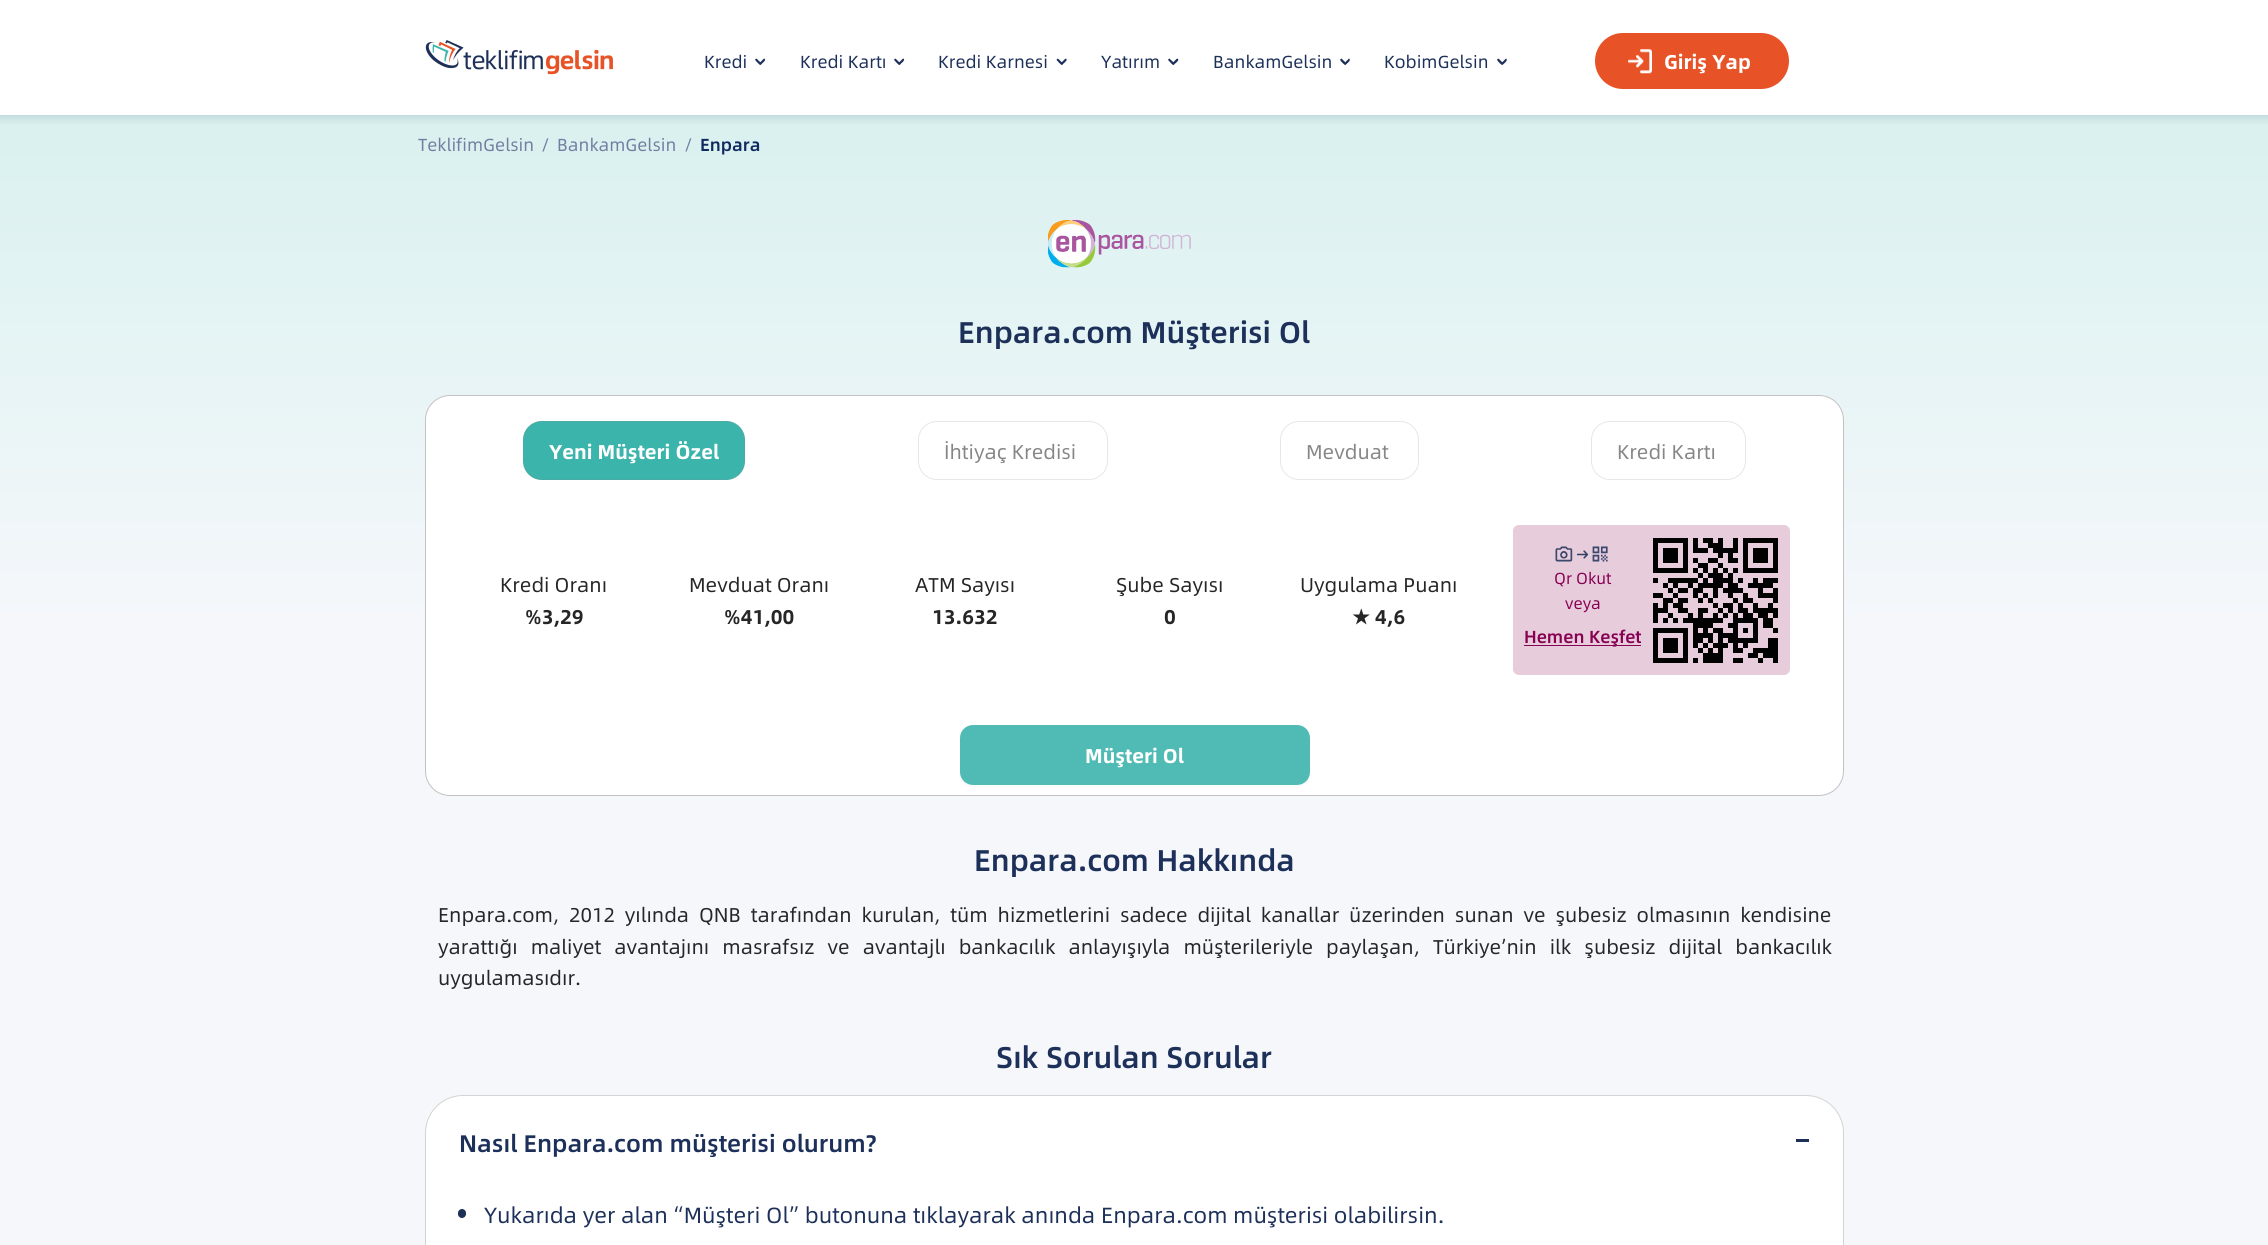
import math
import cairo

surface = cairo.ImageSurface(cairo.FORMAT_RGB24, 2268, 1245)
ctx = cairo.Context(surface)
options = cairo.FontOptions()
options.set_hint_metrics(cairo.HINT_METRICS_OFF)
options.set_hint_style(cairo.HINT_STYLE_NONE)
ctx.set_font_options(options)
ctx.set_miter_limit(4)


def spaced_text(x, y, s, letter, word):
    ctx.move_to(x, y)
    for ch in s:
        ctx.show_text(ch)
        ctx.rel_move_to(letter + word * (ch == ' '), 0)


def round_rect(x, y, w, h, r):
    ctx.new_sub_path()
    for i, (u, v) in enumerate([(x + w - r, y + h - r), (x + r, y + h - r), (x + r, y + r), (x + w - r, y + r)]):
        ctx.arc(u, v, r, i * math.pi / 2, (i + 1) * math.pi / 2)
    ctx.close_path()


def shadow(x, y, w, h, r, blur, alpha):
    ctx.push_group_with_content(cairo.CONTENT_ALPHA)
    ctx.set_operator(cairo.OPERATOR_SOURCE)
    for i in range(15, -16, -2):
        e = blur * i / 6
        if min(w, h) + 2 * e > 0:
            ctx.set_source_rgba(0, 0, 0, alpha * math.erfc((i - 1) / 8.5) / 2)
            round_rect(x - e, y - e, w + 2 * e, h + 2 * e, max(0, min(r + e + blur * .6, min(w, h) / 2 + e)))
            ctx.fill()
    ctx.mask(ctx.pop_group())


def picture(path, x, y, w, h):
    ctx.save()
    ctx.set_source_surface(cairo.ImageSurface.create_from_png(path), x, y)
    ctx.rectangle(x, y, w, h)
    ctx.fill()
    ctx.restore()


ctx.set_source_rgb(1, 1, 1)
ctx.paint()
gradient = cairo.LinearGradient(1134, 115, 1134, 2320)
gradient.add_color_stop_rgba(0, 0.851, 0.945, 0.937, 1)
gradient.add_color_stop_rgba(0.23, 0.961, 0.969, 0.984, 1)
ctx.set_source(gradient)
ctx.rectangle(0, 115, 2268, 1130)
ctx.fill()
ctx.save()
ctx.rectangle(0, 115, 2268, 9)
ctx.clip()
ctx.set_source_rgb(0.114, 0.188, 0.349)
shadow(-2, -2, 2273, 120, 0, 5, 0.15)
ctx.restore()
picture("img1.png", 425, 40, 188, 35)
ctx.select_font_face("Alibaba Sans")
ctx.set_font_size(17.5)
ctx.set_source_rgb(0.114, 0.188, 0.349)
ctx.move_to(704, 68)
ctx.show_text("Kredi")
ctx.new_path()
ctx.move_to(757, 59)
ctx.line_to(761, 63)
ctx.curve_to(761.5, 63.5, 761.5, 64, 761, 64.5)
ctx.curve_to(759.5, 65.5, 756.5, 61.5, 755.5, 60.5)
ctx.curve_to(754.5, 59.5, 756, 58, 757, 59)
ctx.close_path()
ctx.fill()
ctx.new_path()
ctx.move_to(759.5, 63)
ctx.line_to(763.5, 59)
ctx.curve_to(764, 58.5, 764.5, 58.5, 765, 59)
ctx.curve_to(766, 60.5, 762, 63.5, 761, 64.5)
ctx.curve_to(760, 65.5, 758.5, 64, 759.5, 63)
ctx.close_path()
ctx.fill()
ctx.move_to(800, 68)
ctx.show_text("Kredi Kartı")
ctx.new_path()
ctx.move_to(896, 59)
ctx.line_to(900, 63)
ctx.curve_to(900.5, 63.5, 900.5, 64, 900, 64.5)
ctx.curve_to(898.5, 65.5, 895.5, 61.5, 894.5, 60.5)
ctx.curve_to(893.5, 59.5, 895, 58, 896, 59)
ctx.close_path()
ctx.fill()
ctx.new_path()
ctx.move_to(898.5, 63)
ctx.line_to(902.5, 59)
ctx.curve_to(903, 58.5, 903.5, 58.5, 904, 59)
ctx.curve_to(905, 60.5, 901, 63.5, 900, 64.5)
ctx.curve_to(899, 65.5, 897.5, 64, 898.5, 63)
ctx.close_path()
ctx.fill()
ctx.move_to(938, 68)
ctx.show_text("Kredi Karnesi")
ctx.new_path()
ctx.move_to(1058.5, 59)
ctx.line_to(1062.5, 63)
ctx.curve_to(1062.5, 63.5, 1062.5, 64, 1062.5, 64.5)
ctx.curve_to(1061, 65.5, 1058, 61.5, 1057, 60.5)
ctx.curve_to(1056, 59.5, 1057.5, 58, 1058.5, 59)
ctx.close_path()
ctx.fill()
ctx.new_path()
ctx.move_to(1061, 63)
ctx.line_to(1065, 59)
ctx.curve_to(1065.5, 58.5, 1066, 58.5, 1066.5, 59)
ctx.curve_to(1067.5, 60.5, 1063.5, 63.5, 1062.5, 64.5)
ctx.curve_to(1061.5, 65.5, 1060, 64, 1061, 63)
ctx.close_path()
ctx.fill()
ctx.move_to(1101, 68)
ctx.show_text("Yatırım")
ctx.new_path()
ctx.move_to(1170, 59)
ctx.line_to(1174, 63)
ctx.curve_to(1174.5, 63.5, 1174.5, 64, 1174, 64.5)
ctx.curve_to(1172.5, 65.5, 1169.5, 61.5, 1168.5, 60.5)
ctx.curve_to(1167.5, 59.5, 1169, 58, 1170, 59)
ctx.close_path()
ctx.fill()
ctx.new_path()
ctx.move_to(1172.5, 63)
ctx.line_to(1176.5, 59)
ctx.curve_to(1177, 58.5, 1177.5, 58.5, 1178, 59)
ctx.curve_to(1179.5, 60.5, 1175, 63.5, 1174, 64.5)
ctx.curve_to(1173, 65.5, 1171.5, 64, 1172.5, 63)
ctx.close_path()
ctx.fill()
ctx.move_to(1213, 68)
ctx.show_text("BankamGelsin")
ctx.new_path()
ctx.move_to(1342, 59)
ctx.line_to(1346, 63)
ctx.curve_to(1346, 63.5, 1346, 64, 1345.5, 64.5)
ctx.curve_to(1344.5, 65.5, 1341, 61.5, 1340.5, 60.5)
ctx.curve_to(1339.5, 59.5, 1341, 58, 1342, 59)
ctx.close_path()
ctx.fill()
ctx.new_path()
ctx.move_to(1344.5, 63)
ctx.line_to(1348.5, 59)
ctx.curve_to(1348.5, 58.5, 1349.5, 58.5, 1349.5, 59)
ctx.curve_to(1351, 60.5, 1347, 63.5, 1346, 64.5)
ctx.curve_to(1345, 65.5, 1343.5, 64, 1344.5, 63)
ctx.close_path()
ctx.fill()
ctx.move_to(1384, 68)
ctx.show_text("KobimGelsin")
ctx.new_path()
ctx.move_to(1499, 59)
ctx.line_to(1503, 63)
ctx.curve_to(1503, 63.5, 1503, 64, 1502.5, 64.5)
ctx.curve_to(1501.5, 65.5, 1498, 61.5, 1497.5, 60.5)
ctx.curve_to(1496.5, 59.5, 1498, 58, 1499, 59)
ctx.close_path()
ctx.fill()
ctx.new_path()
ctx.move_to(1501.5, 63)
ctx.line_to(1505.5, 59)
ctx.curve_to(1505.5, 58.5, 1506.5, 58.5, 1506.5, 59)
ctx.curve_to(1508, 60.5, 1504, 63.5, 1503, 64.5)
ctx.curve_to(1502, 65.5, 1500.5, 64, 1501.5, 63)
ctx.close_path()
ctx.fill()
ctx.set_source_rgb(0.91, 0.322, 0.153)
round_rect(1596.5, 34.5, 191, 53, 26.5)
ctx.fill_preserve()
ctx.set_line_width(3)
ctx.stroke()
picture("img2.png", 1628, 49, 24, 25)
ctx.select_font_face("Alibaba Sans", cairo.FONT_SLANT_NORMAL, cairo.FONT_WEIGHT_BOLD)
ctx.set_font_size(20)
ctx.set_source_rgb(1, 1, 1)
ctx.move_to(1664, 69)
ctx.show_text("Giriş Yap")
ctx.select_font_face("Alibaba Sans")
ctx.set_font_size(17.5)
ctx.set_source_rgb(0.439, 0.498, 0.627)
ctx.move_to(418, 151)
ctx.show_text("TeklifimGelsin")
ctx.move_to(541, 151)
ctx.show_text("/")
ctx.move_to(557, 151)
ctx.show_text("BankamGelsin")
ctx.move_to(684, 151)
ctx.show_text("/")
ctx.select_font_face("Alibaba Sans Medium")
ctx.set_source_rgb(0.063, 0.165, 0.376)
ctx.move_to(700, 151)
ctx.show_text("Enpara")
picture("img3.png", 1048, 220, 143, 48)
ctx.set_font_size(30)
ctx.set_source_rgb(0.114, 0.188, 0.349)
ctx.move_to(958, 343)
ctx.show_text("Enpara.com Müşterisi Ol")
ctx.set_source_rgb(1, 1, 1)
round_rect(425, 395, 1419, 401, 25)
ctx.fill()
round_rect(425.5, 395.5, 1418, 400, 24.5)
ctx.set_source_rgba(0.529, 0.529, 0.529, 0.5)
ctx.set_line_width(1)
ctx.stroke()
ctx.set_source_rgb(0.231, 0.706, 0.675)
round_rect(523, 421, 222, 59, 19)
ctx.fill()
round_rect(523.5, 421.5, 221, 58, 18.5)
ctx.set_source_rgba(0.529, 0.529, 0.529, 0.2)
ctx.stroke()
ctx.select_font_face("Alibaba Sans", cairo.FONT_SLANT_NORMAL, cairo.FONT_WEIGHT_BOLD)
ctx.set_font_size(20)
ctx.set_source_rgb(1, 1, 1)
ctx.move_to(549, 459)
ctx.show_text("Yeni Müşteri Özel")
round_rect(918.5, 421.5, 189, 58, 18.5)
ctx.set_source_rgb(0.906, 0.906, 0.906)
ctx.stroke()
ctx.select_font_face("Alibaba Sans")
ctx.set_source_rgb(0.525, 0.525, 0.525)
ctx.move_to(944, 459)
ctx.show_text("İhtiyaç Kredisi")
round_rect(1280.5, 421.5, 138, 58, 18.5)
ctx.set_source_rgb(0.906, 0.906, 0.906)
ctx.stroke()
ctx.set_source_rgb(0.525, 0.525, 0.525)
ctx.move_to(1306, 459)
ctx.show_text("Mevduat")
round_rect(1591.5, 421.5, 154, 58, 18.5)
ctx.set_source_rgb(0.906, 0.906, 0.906)
ctx.stroke()
ctx.set_source_rgb(0.525, 0.525, 0.525)
ctx.move_to(1617, 459)
ctx.show_text("Kredi Kartı")
ctx.set_source_rgb(0.149, 0.149, 0.149)
ctx.move_to(500, 592)
ctx.show_text("Kredi Oranı")
ctx.select_font_face("Alibaba Sans", cairo.FONT_SLANT_NORMAL, cairo.FONT_WEIGHT_BOLD)
ctx.move_to(525, 624)
ctx.show_text("%3,29")
ctx.select_font_face("Alibaba Sans")
ctx.move_to(689, 592)
ctx.show_text("Mevduat Oranı")
ctx.select_font_face("Alibaba Sans", cairo.FONT_SLANT_NORMAL, cairo.FONT_WEIGHT_BOLD)
ctx.move_to(724, 624)
ctx.show_text("%41,00")
ctx.select_font_face("Alibaba Sans")
ctx.move_to(915, 592)
ctx.show_text("ATM Sayısı")
ctx.select_font_face("Alibaba Sans", cairo.FONT_SLANT_NORMAL, cairo.FONT_WEIGHT_BOLD)
ctx.move_to(932, 624)
ctx.show_text("13.632")
ctx.select_font_face("Alibaba Sans")
ctx.move_to(1116, 592)
ctx.show_text("Şube Sayısı")
ctx.select_font_face("Alibaba Sans", cairo.FONT_SLANT_NORMAL, cairo.FONT_WEIGHT_BOLD)
ctx.move_to(1164, 624)
ctx.show_text("0")
ctx.select_font_face("Alibaba Sans")
ctx.move_to(1300, 592)
ctx.show_text("Uygulama Puanı")
ctx.select_font_face("DejaVu Sans", cairo.FONT_SLANT_NORMAL, cairo.FONT_WEIGHT_BOLD)
ctx.move_to(1352, 624)
ctx.show_text("★")
ctx.select_font_face("Alibaba Sans", cairo.FONT_SLANT_NORMAL, cairo.FONT_WEIGHT_BOLD)
ctx.move_to(1375, 624)
ctx.show_text("4,6")
ctx.set_source_rgb(0.906, 0.8, 0.863)
round_rect(1513, 525, 277, 150, 6)
ctx.fill()
picture("img4.png", 1555, 546, 18, 16)
picture("img5.png", 1577, 550, 11, 9)
picture("img6.png", 1592, 546, 16, 16)
ctx.select_font_face("Alibaba Sans")
ctx.set_font_size(16)
ctx.set_source_rgb(0.529, 0, 0.322)
ctx.move_to(1554, 584)
ctx.show_text("Qr Okut")
ctx.move_to(1565, 609)
ctx.show_text("veya")
ctx.rectangle(1524, 645, 117, 1)
ctx.fill()
ctx.select_font_face("Alibaba Sans Medium")
ctx.set_font_size(17.5)
ctx.move_to(1524, 643)
ctx.show_text("Hemen Keşfet")
picture("img7.png", 1653, 538, 125, 125)
ctx.set_source_rgb(0.984, 0.984, 0.984)
ctx.new_path()
ctx.move_to(960, 772)
ctx.line_to(960, 775)
ctx.curve_to(960, 782, 966, 788, 973, 788)
ctx.line_to(1297, 788)
ctx.curve_to(1304, 788, 1310, 782, 1310, 775)
ctx.line_to(1310, 772)
ctx.curve_to(1310, 779, 1304, 785, 1298, 785)
ctx.line_to(972, 785)
ctx.curve_to(966, 785, 960, 779, 960, 772)
ctx.close_path()
ctx.fill()
ctx.set_source_rgb(0.31, 0.733, 0.706)
round_rect(960, 725, 350, 60, 13)
ctx.fill()
ctx.select_font_face("Alibaba Sans", cairo.FONT_SLANT_NORMAL, cairo.FONT_WEIGHT_BOLD)
ctx.set_font_size(20)
ctx.set_source_rgb(1, 1, 1)
ctx.move_to(1085, 763)
ctx.show_text("Müşteri Ol")
ctx.select_font_face("Alibaba Sans Medium")
ctx.set_font_size(30)
ctx.set_source_rgb(0.114, 0.188, 0.349)
ctx.move_to(974, 871)
ctx.show_text("Enpara.com Hakkında")
ctx.select_font_face("Alibaba Sans")
ctx.set_font_size(20)
ctx.set_source_rgb(0.149, 0.149, 0.149)
spaced_text(438, 922, "Enpara.com, 2012 yılında QNB tarafından kurulan, tüm hizmetlerini sadece dijital kanallar üzerinden sunan ve şubesiz olmasının kendisine", 0, 4.75)
spaced_text(438, 954, "yarattığı maliyet avantajını masrafsız ve avantajlı bankacılık anlayışıyla müşterileriyle paylaşan, Türkiye’nin ilk şubesiz dijital bankacılık", 0, 8)
ctx.move_to(438, 985)
ctx.show_text("uygulamasıdır.")
ctx.select_font_face("Alibaba Sans Medium")
ctx.set_font_size(30)
ctx.set_source_rgb(0.114, 0.188, 0.349)
ctx.move_to(996, 1068)
ctx.show_text("Sık Sorulan Sorular")
ctx.set_source_rgb(1, 1, 1)
round_rect(425.5, 1095.5, 1418, 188, 37.5)
ctx.fill_preserve()
ctx.set_source_rgb(0.827, 0.827, 0.827)
ctx.stroke()
ctx.set_font_size(24)
ctx.set_source_rgb(0.114, 0.188, 0.349)
ctx.move_to(459, 1152)
ctx.show_text("Nasıl Enpara.com müşterisi olurum?")
ctx.rectangle(1796, 1139, 13, 3)
ctx.fill()
round_rect(458, 1209, 8, 9, 4)
ctx.fill()
ctx.select_font_face("Alibaba Sans")
ctx.set_font_size(22)
ctx.move_to(484, 1223)
ctx.show_text("Yukarıda yer alan “Müşteri Ol” butonuna tıklayarak anında Enpara.com müşterisi olabilirsin.")
surface.write_to_png("page.png")
